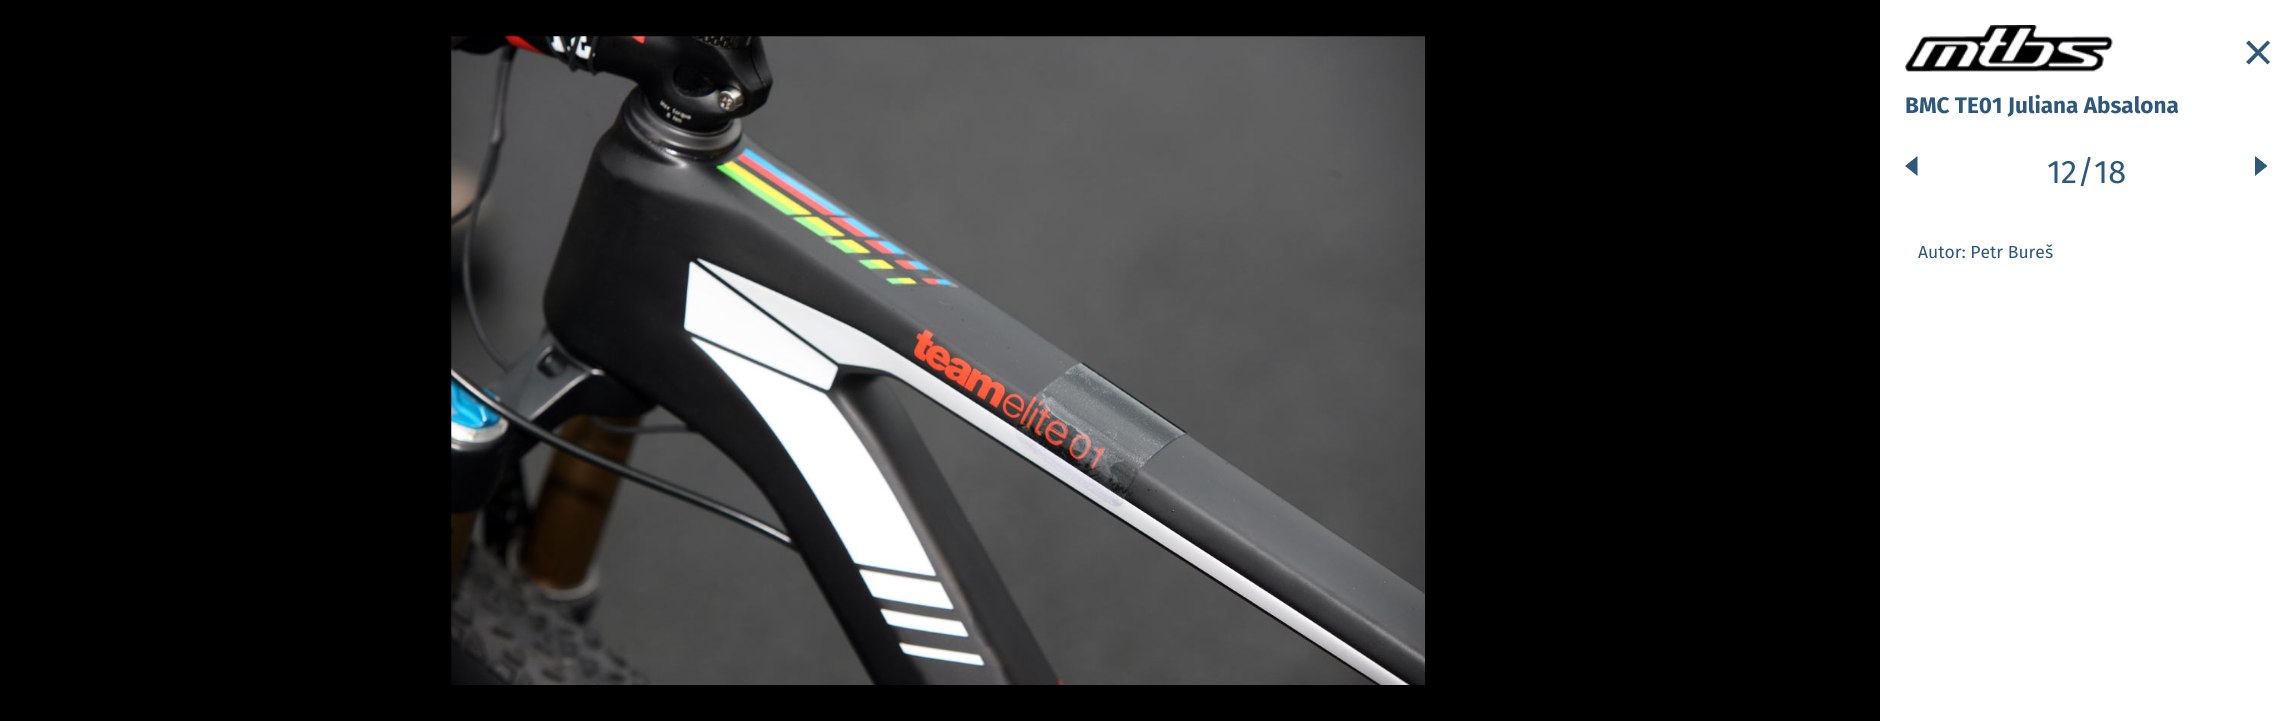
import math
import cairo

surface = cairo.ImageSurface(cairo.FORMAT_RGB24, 2292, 721)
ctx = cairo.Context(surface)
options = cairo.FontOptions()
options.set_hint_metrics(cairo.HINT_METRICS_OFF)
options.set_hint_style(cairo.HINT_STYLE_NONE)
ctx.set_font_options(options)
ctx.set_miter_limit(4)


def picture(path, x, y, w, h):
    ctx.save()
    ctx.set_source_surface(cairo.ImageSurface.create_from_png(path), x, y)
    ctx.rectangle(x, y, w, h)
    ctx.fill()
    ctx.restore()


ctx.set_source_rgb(0, 0, 0)
ctx.paint()
picture("img1.png", 451, 36, 974, 649)
ctx.set_source_rgb(1, 1, 1)
ctx.rectangle(1880, 0, 412, 721)
ctx.fill()
picture("img2.png", 1905, 25, 208, 47)
ctx.set_source_rgb(0.176, 0.341, 0.482)
ctx.new_path()
ctx.move_to(2267.5, 40.5)
ctx.line_to(2270, 43)
ctx.line_to(2249, 64.5)
ctx.line_to(2246, 62)
ctx.close_path()
ctx.fill()
ctx.new_path()
ctx.move_to(2246, 43)
ctx.line_to(2249, 40.5)
ctx.line_to(2270, 62)
ctx.line_to(2267.5, 64.5)
ctx.close_path()
ctx.fill()
ctx.select_font_face("Fira Sans", cairo.FONT_SLANT_NORMAL, cairo.FONT_WEIGHT_BOLD)
ctx.set_font_size(22.5)
ctx.move_to(1905, 113)
ctx.show_text("BMC TE01 Juliana Absalona")
ctx.new_path()
ctx.move_to(1917.5, 156)
ctx.line_to(1917.5, 176)
ctx.line_to(1905, 166)
ctx.close_path()
ctx.fill()
ctx.select_font_face("Fira Sans")
ctx.set_font_size(32.5)
ctx.move_to(2047, 183)
ctx.show_text("12/18")
ctx.new_path()
ctx.move_to(2255, 176)
ctx.line_to(2255, 156)
ctx.line_to(2267.5, 166)
ctx.close_path()
ctx.fill()
ctx.set_font_size(17.5)
ctx.move_to(1918, 258)
ctx.show_text("Autor: Petr Bureš")
surface.write_to_png("page.png")
